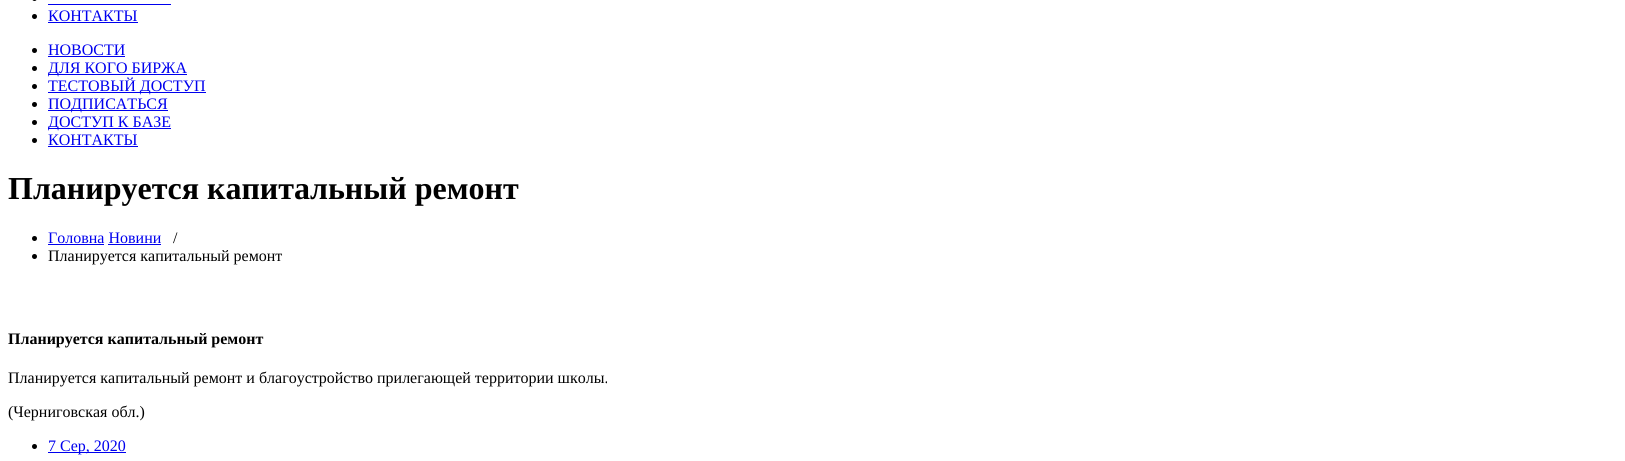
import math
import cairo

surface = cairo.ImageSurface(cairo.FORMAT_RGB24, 1625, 461)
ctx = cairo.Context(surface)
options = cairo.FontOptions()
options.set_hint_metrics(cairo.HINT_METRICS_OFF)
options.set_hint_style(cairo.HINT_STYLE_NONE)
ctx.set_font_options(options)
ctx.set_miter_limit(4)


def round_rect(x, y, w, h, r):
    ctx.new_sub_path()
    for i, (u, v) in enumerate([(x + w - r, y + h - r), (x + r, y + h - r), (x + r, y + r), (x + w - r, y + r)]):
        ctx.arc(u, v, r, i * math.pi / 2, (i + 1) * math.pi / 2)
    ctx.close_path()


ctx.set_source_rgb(1, 1, 1)
ctx.paint()
ctx.set_source_rgb(0, 0, 0)
round_rect(32, -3, 5, 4, 2.5)
ctx.fill()
ctx.set_source_rgb(0, 0, 0.933)
ctx.rectangle(48, 4, 123, 1)
ctx.fill()
ctx.set_source_rgb(0, 0, 0)
ctx.arc(34.5, 16.5, 2.5, 0, 2 * math.pi)
ctx.fill()
ctx.select_font_face("Liberation Serif")
ctx.set_font_size(16)
ctx.set_source_rgb(0, 0, 0.933)
ctx.move_to(48, 21)
ctx.show_text("КОНТАКТЫ")
ctx.rectangle(48, 22, 90, 1)
ctx.fill()
ctx.set_source_rgb(0, 0, 0)
ctx.arc(34.5, 50.5, 2.5, 0, 2 * math.pi)
ctx.fill()
ctx.set_source_rgb(0, 0, 0.933)
ctx.move_to(48, 55)
ctx.show_text("НОВОСТИ")
ctx.rectangle(48, 56, 77, 1)
ctx.fill()
ctx.set_source_rgb(0, 0, 0)
ctx.arc(34.5, 68.5, 2.5, 0, 2 * math.pi)
ctx.fill()
ctx.set_source_rgb(0, 0, 0.933)
ctx.rectangle(48, 74, 139, 1)
ctx.fill()
ctx.move_to(48, 73)
ctx.show_text("ДЛЯ КОГО БИРЖА")
ctx.set_source_rgb(0, 0, 0)
ctx.new_path()
ctx.arc(34.5, 86.5, 2.5, 0, 2 * math.pi)
ctx.fill()
ctx.set_source_rgb(0, 0, 0.933)
ctx.rectangle(48, 92, 158, 1)
ctx.fill()
ctx.move_to(48, 91)
ctx.show_text("ТЕСТОВЫЙ ДОСТУП")
ctx.set_source_rgb(0, 0, 0)
ctx.new_path()
ctx.arc(34.5, 104.5, 2.5, 0, 2 * math.pi)
ctx.fill()
ctx.set_source_rgb(0, 0, 0.933)
ctx.rectangle(48, 110, 120, 1)
ctx.fill()
ctx.move_to(48, 109)
ctx.show_text("ПОДПИСАТЬСЯ")
ctx.set_source_rgb(0, 0, 0)
ctx.new_path()
ctx.arc(34.5, 122.5, 2.5, 0, 2 * math.pi)
ctx.fill()
ctx.set_source_rgb(0, 0, 0.933)
ctx.rectangle(48, 128, 123, 1)
ctx.fill()
ctx.move_to(48, 127)
ctx.show_text("ДОСТУП К БАЗЕ")
ctx.set_source_rgb(0, 0, 0)
ctx.new_path()
ctx.arc(34.5, 140.5, 2.5, 0, 2 * math.pi)
ctx.fill()
ctx.set_source_rgb(0, 0, 0.933)
ctx.move_to(48, 145)
ctx.show_text("КОНТАКТЫ")
ctx.rectangle(48, 146, 90, 1)
ctx.fill()
ctx.select_font_face("Liberation Serif", cairo.FONT_SLANT_NORMAL, cairo.FONT_WEIGHT_BOLD)
ctx.set_font_size(32)
ctx.set_source_rgb(0, 0, 0)
ctx.move_to(8, 199)
ctx.show_text("Планируется капитальный ремонт")
ctx.new_path()
ctx.arc(34.5, 238.5, 2.5, 0, 2 * math.pi)
ctx.fill()
ctx.select_font_face("Liberation Serif")
ctx.set_font_size(16)
ctx.set_source_rgb(0, 0, 0.933)
ctx.move_to(48, 243)
ctx.show_text("Головна Новини")
ctx.rectangle(48, 244, 56, 1)
ctx.fill()
ctx.set_source_rgb(0, 0, 0)
ctx.move_to(173, 243)
ctx.show_text("/")
ctx.set_source_rgb(0, 0, 0.933)
ctx.rectangle(108, 244, 53, 1)
ctx.fill()
ctx.set_source_rgb(0, 0, 0)
ctx.arc(34.5, 256.5, 2.5, 0, 2 * math.pi)
ctx.fill()
ctx.move_to(48, 261)
ctx.show_text("Планируется капитальный ремонт")
ctx.select_font_face("Liberation Serif", cairo.FONT_SLANT_NORMAL, cairo.FONT_WEIGHT_BOLD)
ctx.move_to(8, 344)
ctx.show_text("Планируется капитальный ремонт")
ctx.select_font_face("Liberation Serif")
ctx.move_to(8, 383)
ctx.show_text("Планируется капитальный ремонт и благоустройство прилегающей территории школы.")
ctx.move_to(8, 417)
ctx.show_text("(Черниговская обл.)")
ctx.new_path()
ctx.arc(34.5, 446.5, 2.5, 0, 2 * math.pi)
ctx.fill()
ctx.set_source_rgb(0, 0, 0.933)
ctx.rectangle(48, 452, 78, 1)
ctx.fill()
ctx.move_to(48, 451)
ctx.show_text("7 Сер, 2020")
surface.write_to_png("page.png")
